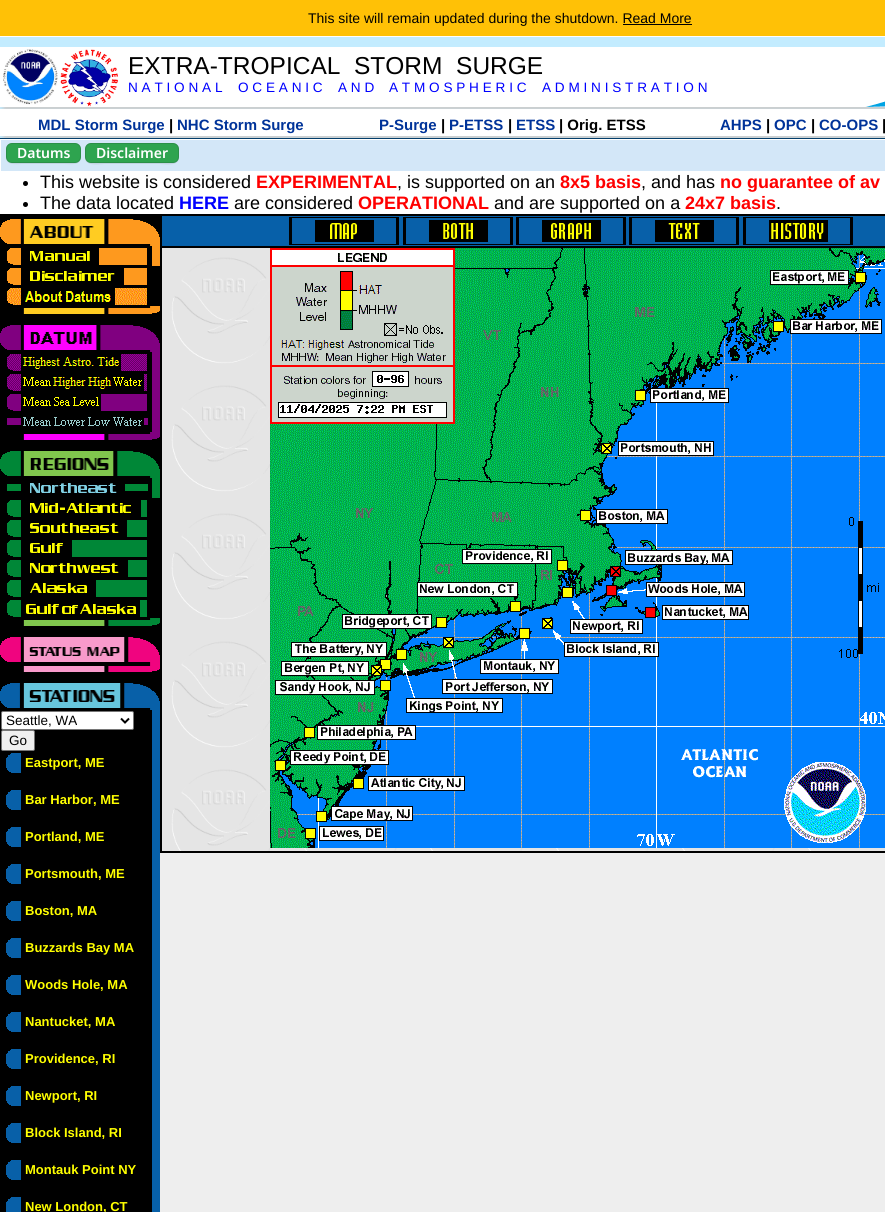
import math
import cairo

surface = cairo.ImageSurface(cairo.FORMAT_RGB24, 885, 1212)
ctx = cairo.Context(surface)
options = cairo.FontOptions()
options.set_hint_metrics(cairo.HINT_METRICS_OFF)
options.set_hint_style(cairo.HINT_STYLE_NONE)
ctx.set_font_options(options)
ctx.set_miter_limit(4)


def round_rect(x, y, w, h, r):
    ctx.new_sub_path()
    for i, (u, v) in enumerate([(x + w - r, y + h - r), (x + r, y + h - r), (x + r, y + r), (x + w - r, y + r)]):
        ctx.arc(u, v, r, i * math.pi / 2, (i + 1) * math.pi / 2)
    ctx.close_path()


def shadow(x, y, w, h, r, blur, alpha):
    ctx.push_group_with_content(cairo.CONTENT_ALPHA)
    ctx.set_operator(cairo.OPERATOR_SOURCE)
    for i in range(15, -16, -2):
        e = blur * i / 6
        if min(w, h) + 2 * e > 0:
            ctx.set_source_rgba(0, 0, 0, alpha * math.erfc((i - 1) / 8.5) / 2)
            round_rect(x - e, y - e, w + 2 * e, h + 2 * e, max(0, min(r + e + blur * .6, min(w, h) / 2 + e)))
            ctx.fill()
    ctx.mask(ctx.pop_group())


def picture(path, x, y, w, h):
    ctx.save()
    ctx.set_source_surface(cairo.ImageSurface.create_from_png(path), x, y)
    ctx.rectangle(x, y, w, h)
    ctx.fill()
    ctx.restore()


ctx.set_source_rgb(0.765, 0.922, 1)
ctx.paint()
ctx.set_source_rgb(1, 0.757, 0.027)
ctx.rectangle(0, 0, 885, 36)
ctx.fill()
ctx.set_source_rgb(1, 1, 1)
ctx.rectangle(0, 36, 885, 1)
ctx.fill()
ctx.select_font_face("Liberation Sans")
ctx.set_font_size(14)
ctx.set_source_rgb(0, 0, 0)
ctx.move_to(308, 23)
ctx.show_text("This site will remain updated during the shutdown. Read More")
ctx.rectangle(623, 24, 69, 1)
ctx.fill()
ctx.set_source_rgb(0.8, 0.8, 0.8)
shadow(3, 57, 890, 54, 0, 2.5, 1)
ctx.set_source_rgb(1, 1, 1)
ctx.rectangle(0, 47, 885, 60)
ctx.fill()
picture("img1.png", 3, 49, 55, 56)
picture("img2.png", 60, 49, 58, 58)
ctx.set_font_size(24.5)
ctx.set_source_rgb(0, 0, 0)
ctx.move_to(128, 74)
ctx.show_text("EXTRA-TROPICAL  STORM  SURGE")
ctx.set_font_size(13.6)
ctx.set_source_rgb(0, 0, 1)
ctx.move_to(128, 92)
ctx.show_text("N A T I O N A L")
ctx.move_to(238, 92)
ctx.show_text("O C E A N I C")
ctx.move_to(338, 92)
ctx.show_text("A N D")
ctx.move_to(389, 92)
ctx.show_text("A T M O S P H E R I C")
ctx.move_to(542, 92)
ctx.show_text("A D M I N I S T R A T I O N")
picture("img3.png", 865, 101, 20, 6)
ctx.set_source_rgb(0.8, 0.8, 0.8)
shadow(3, 119, 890, 21, 0, 2.5, 1)
ctx.set_source_rgb(1, 1, 1)
ctx.rectangle(0, 109, 885, 27)
ctx.fill()
ctx.select_font_face("Liberation Sans", cairo.FONT_SLANT_NORMAL, cairo.FONT_WEIGHT_BOLD)
ctx.set_font_size(15)
ctx.set_source_rgb(0, 0.2, 0.6)
ctx.move_to(38, 130)
ctx.show_text("MDL Storm Surge")
ctx.set_source_rgb(0, 0, 0)
ctx.move_to(169, 130)
ctx.show_text("|")
ctx.set_source_rgb(0, 0.2, 0.6)
ctx.move_to(177, 130)
ctx.show_text("NHC Storm Surge")
ctx.move_to(379, 130)
ctx.show_text("P-Surge")
ctx.set_source_rgb(0, 0, 0)
ctx.move_to(441, 130)
ctx.show_text("|")
ctx.set_source_rgb(0, 0.2, 0.6)
ctx.move_to(449, 130)
ctx.show_text("P-ETSS")
ctx.set_source_rgb(0, 0, 0)
ctx.move_to(508, 130)
ctx.show_text("|")
ctx.set_source_rgb(0, 0.2, 0.6)
ctx.move_to(516, 130)
ctx.show_text("ETSS")
ctx.set_source_rgb(0, 0, 0)
ctx.move_to(559, 130)
ctx.show_text("| Orig. ETSS")
ctx.set_source_rgb(0, 0.2, 0.6)
ctx.move_to(720, 130)
ctx.show_text("AHPS")
ctx.set_source_rgb(0, 0, 0)
ctx.move_to(766, 130)
ctx.show_text("|")
ctx.set_source_rgb(0, 0.2, 0.6)
ctx.move_to(774, 130)
ctx.show_text("OPC")
ctx.set_source_rgb(0, 0, 0)
ctx.move_to(811, 130)
ctx.show_text("|")
ctx.set_source_rgb(0, 0.2, 0.6)
ctx.move_to(819, 130)
ctx.show_text("CO-OPS")
ctx.set_source_rgb(0, 0, 0)
ctx.move_to(882, 130)
ctx.show_text("|")
ctx.set_source_rgb(0.012, 0.243, 0.42)
ctx.rectangle(0, 138, 885, 1)
ctx.fill()
ctx.set_source_rgb(0.827, 0.906, 0.969)
ctx.rectangle(0.5, 139.5, 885, 32)
ctx.fill_preserve()
ctx.set_source_rgb(1, 1, 1)
ctx.set_line_width(1)
ctx.stroke()
ctx.set_source_rgb(0.757, 0.827, 0.886)
ctx.new_path()
ctx.move_to(6, 157)
ctx.curve_to(6, 166, 16, 164, 22, 164)
ctx.line_to(64, 164)
ctx.curve_to(71, 164, 81, 166, 81, 157)
ctx.curve_to(81, 160, 78, 163, 75, 163)
ctx.line_to(12, 163)
ctx.curve_to(9, 163, 6, 160, 6, 157)
ctx.close_path()
ctx.fill()
ctx.set_source_rgb(0.18, 0.643, 0.31)
round_rect(6, 143, 75, 20, 6)
ctx.fill()
round_rect(6.5, 143.5, 74, 19, 5.5)
ctx.set_source_rgba(0.106, 0.122, 0.137, 0.15)
ctx.stroke()
ctx.select_font_face("Noto Sans SemiBold")
ctx.set_font_size(14)
ctx.set_source_rgb(1, 1, 1)
ctx.move_to(17, 158)
ctx.show_text("Datums")
ctx.set_source_rgb(0.757, 0.827, 0.886)
ctx.new_path()
ctx.move_to(85, 157)
ctx.curve_to(85, 167, 98, 164, 105, 164)
ctx.line_to(159, 164)
ctx.curve_to(166, 164, 179, 167, 179, 157)
ctx.curve_to(179, 160, 176, 163, 173, 163)
ctx.line_to(91, 163)
ctx.curve_to(88, 163, 85, 160, 85, 157)
ctx.close_path()
ctx.fill()
ctx.set_source_rgb(0.18, 0.643, 0.31)
round_rect(85, 143, 94, 20, 6)
ctx.fill()
round_rect(85.5, 143.5, 93, 19, 5.5)
ctx.set_source_rgba(0.106, 0.122, 0.137, 0.15)
ctx.stroke()
ctx.set_source_rgb(1, 1, 1)
ctx.move_to(96, 158)
ctx.show_text("Disclaimer")
ctx.rectangle(0, 172, 885, 42)
ctx.fill()
ctx.set_source_rgb(0, 0, 0)
ctx.arc(25.5, 183.5, 2.5, 0, 2 * math.pi)
ctx.fill()
ctx.select_font_face("Liberation Sans")
ctx.set_font_size(18)
ctx.move_to(40, 188)
ctx.show_text("This website is considered")
ctx.select_font_face("Liberation Sans", cairo.FONT_SLANT_NORMAL, cairo.FONT_WEIGHT_BOLD)
ctx.set_source_rgb(1, 0, 0)
ctx.move_to(256, 188)
ctx.show_text("EXPERIMENTAL")
ctx.select_font_face("Liberation Sans")
ctx.set_source_rgb(0, 0, 0)
ctx.move_to(397, 188)
ctx.show_text(", is supported on an")
ctx.select_font_face("Liberation Sans", cairo.FONT_SLANT_NORMAL, cairo.FONT_WEIGHT_BOLD)
ctx.set_source_rgb(1, 0, 0)
ctx.move_to(560, 188)
ctx.show_text("8x5 basis")
ctx.select_font_face("Liberation Sans")
ctx.set_source_rgb(0, 0, 0)
ctx.move_to(641, 188)
ctx.show_text(", and has")
ctx.select_font_face("Liberation Sans", cairo.FONT_SLANT_NORMAL, cairo.FONT_WEIGHT_BOLD)
ctx.set_source_rgb(1, 0, 0)
ctx.move_to(720, 188)
ctx.show_text("no guarantee of av")
ctx.set_source_rgb(0, 0, 0)
ctx.new_path()
ctx.arc(25.5, 204.5, 2.5, 0, 2 * math.pi)
ctx.fill()
ctx.select_font_face("Liberation Sans")
ctx.move_to(40, 209)
ctx.show_text("The data located")
ctx.select_font_face("Liberation Sans", cairo.FONT_SLANT_NORMAL, cairo.FONT_WEIGHT_BOLD)
ctx.set_source_rgb(0, 0, 1)
ctx.move_to(179, 209)
ctx.show_text("HERE")
ctx.select_font_face("Liberation Sans")
ctx.set_source_rgb(0, 0, 0)
ctx.move_to(234, 209)
ctx.show_text("are considered")
ctx.select_font_face("Liberation Sans", cairo.FONT_SLANT_NORMAL, cairo.FONT_WEIGHT_BOLD)
ctx.set_source_rgb(1, 0, 0)
ctx.move_to(358, 209)
ctx.show_text("OPERATIONAL")
ctx.select_font_face("Liberation Sans")
ctx.set_source_rgb(0, 0, 0)
ctx.move_to(494, 209)
ctx.show_text("and are supported on a")
ctx.select_font_face("Liberation Sans", cairo.FONT_SLANT_NORMAL, cairo.FONT_WEIGHT_BOLD)
ctx.set_source_rgb(1, 0, 0)
ctx.move_to(685, 209)
ctx.show_text("24x7 basis")
ctx.select_font_face("Liberation Sans")
ctx.set_source_rgb(0, 0, 0)
ctx.move_to(776, 209)
ctx.show_text(".")
ctx.rectangle(0, 214, 160, 5)
ctx.fill()
picture("img4.png", 0, 219, 160, 27)
ctx.rectangle(0, 246, 152, 20)
ctx.fill()
picture("img5.png", 7, 248, 140, 17)
ctx.set_source_rgb(0.996, 0.6, 0.118)
ctx.rectangle(152, 246, 8, 20)
ctx.fill()
ctx.set_source_rgb(0, 0, 0)
ctx.rectangle(0, 266, 160, 59)
ctx.fill()
picture("img6.png", 7, 268, 140, 17)
picture("img7.png", 7, 288, 140, 17)
picture("img8.png", 23, 306, 137, 8)
picture("img9.png", 0, 325, 160, 27)
ctx.rectangle(0, 352, 152, 80)
ctx.fill()
picture("img10.png", 7, 354, 140, 17)
ctx.set_source_rgb(0.502, 0, 0.502)
ctx.rectangle(152, 352, 8, 80)
ctx.fill()
picture("img11.png", 7, 374, 140, 17)
picture("img12.png", 7, 394, 140, 17)
picture("img13.png", 7, 417, 141, 9)
ctx.set_source_rgb(0, 0, 0)
ctx.rectangle(0, 432, 160, 19)
ctx.fill()
picture("img14.png", 23, 432, 137, 8)
picture("img15.png", 0, 451, 160, 27)
ctx.rectangle(0, 478, 152, 20)
ctx.fill()
picture("img16.png", 7, 483, 141, 10)
ctx.set_source_rgb(0, 0.529, 0.216)
ctx.rectangle(152, 478, 8, 20)
ctx.fill()
ctx.set_source_rgb(0, 0, 0)
ctx.rectangle(0, 498, 160, 139)
ctx.fill()
picture("img17.png", 7, 500, 140, 17)
picture("img18.png", 7, 520, 140, 17)
picture("img19.png", 7, 540, 140, 17)
picture("img20.png", 7, 560, 140, 17)
picture("img21.png", 7, 580, 140, 17)
picture("img22.png", 7, 600, 140, 17)
picture("img23.png", 23, 618, 137, 8)
picture("img24.png", 0, 637, 160, 27)
ctx.rectangle(0, 664, 160, 19)
ctx.fill()
picture("img25.png", 23, 664, 137, 8)
picture("img26.png", 0, 683, 160, 27)
ctx.rectangle(0, 710, 152, 502)
ctx.fill()
ctx.set_source_rgb(1, 1, 1)
round_rect(1.5, 711.5, 132, 18, 1.5)
ctx.fill_preserve()
ctx.set_source_rgb(0.463, 0.463, 0.463)
ctx.stroke()
ctx.new_path()
ctx.move_to(121, 718.5)
ctx.line_to(125, 722.5)
ctx.line_to(129, 718.5)
ctx.set_source_rgb(0, 0, 0)
ctx.set_line_width(2)
ctx.stroke()
ctx.set_font_size(13.5)
ctx.move_to(6, 725)
ctx.show_text("Seattle, WA")
ctx.set_source_rgb(0.937, 0.937, 0.937)
round_rect(1.5, 730.5, 33, 20, 1.5)
ctx.fill_preserve()
ctx.set_source_rgb(0.463, 0.463, 0.463)
ctx.set_line_width(1)
ctx.stroke()
ctx.set_source_rgb(0, 0, 0)
ctx.move_to(9, 745)
ctx.show_text("Go")
picture("img27.png", 6, 753, 15, 20)
ctx.select_font_face("Liberation Sans", cairo.FONT_SLANT_NORMAL, cairo.FONT_WEIGHT_BOLD)
ctx.set_font_size(13)
ctx.set_source_rgb(1, 1, 0)
ctx.move_to(25, 767)
ctx.show_text("Eastport, ME")
picture("img27.png", 6, 790, 15, 20)
ctx.move_to(25, 804)
ctx.show_text("Bar Harbor, ME")
picture("img27.png", 6, 827, 15, 20)
ctx.move_to(25, 841)
ctx.show_text("Portland, ME")
picture("img27.png", 6, 864, 15, 20)
ctx.move_to(25, 878)
ctx.show_text("Portsmouth, ME")
picture("img27.png", 6, 901, 15, 20)
ctx.move_to(25, 915)
ctx.show_text("Boston, MA")
picture("img27.png", 6, 938, 15, 20)
ctx.move_to(25, 952)
ctx.show_text("Buzzards Bay MA")
picture("img27.png", 6, 975, 15, 20)
ctx.move_to(25, 989)
ctx.show_text("Woods Hole, MA")
picture("img27.png", 6, 1012, 15, 20)
ctx.move_to(25, 1026)
ctx.show_text("Nantucket, MA")
picture("img27.png", 6, 1049, 15, 20)
ctx.move_to(25, 1063)
ctx.show_text("Providence, RI")
picture("img27.png", 6, 1086, 15, 20)
ctx.move_to(25, 1100)
ctx.show_text("Newport, RI")
picture("img27.png", 6, 1123, 15, 20)
ctx.move_to(25, 1137)
ctx.show_text("Block Island, RI")
picture("img27.png", 6, 1160, 15, 20)
ctx.move_to(25, 1174)
ctx.show_text("Montauk Point NY")
picture("img28.png", 6, 1197, 15, 15)
ctx.move_to(25, 1211)
ctx.show_text("New London, CT")
ctx.set_source_rgb(0.031, 0.376, 0.659)
ctx.rectangle(152, 710, 8, 502)
ctx.fill()
ctx.set_source_rgb(0.933, 0.933, 0.933)
ctx.rectangle(160, 853, 725, 359)
ctx.fill()
ctx.set_source_rgb(0, 0, 0)
ctx.rectangle(160, 214, 725, 639)
ctx.fill()
ctx.set_source_rgb(0.031, 0.376, 0.663)
ctx.rectangle(162, 216, 723, 30)
ctx.fill()
picture("img29.png", 289, 217, 110, 28)
picture("img30.png", 403, 217, 110, 28)
picture("img31.png", 516, 217, 110, 28)
picture("img32.png", 629, 217, 110, 28)
picture("img33.png", 743, 217, 110, 28)
picture("img34.png", 162, 248, 723, 603)
picture("img35.png", 270, 248, 615, 600)
surface.write_to_png("page.png")
